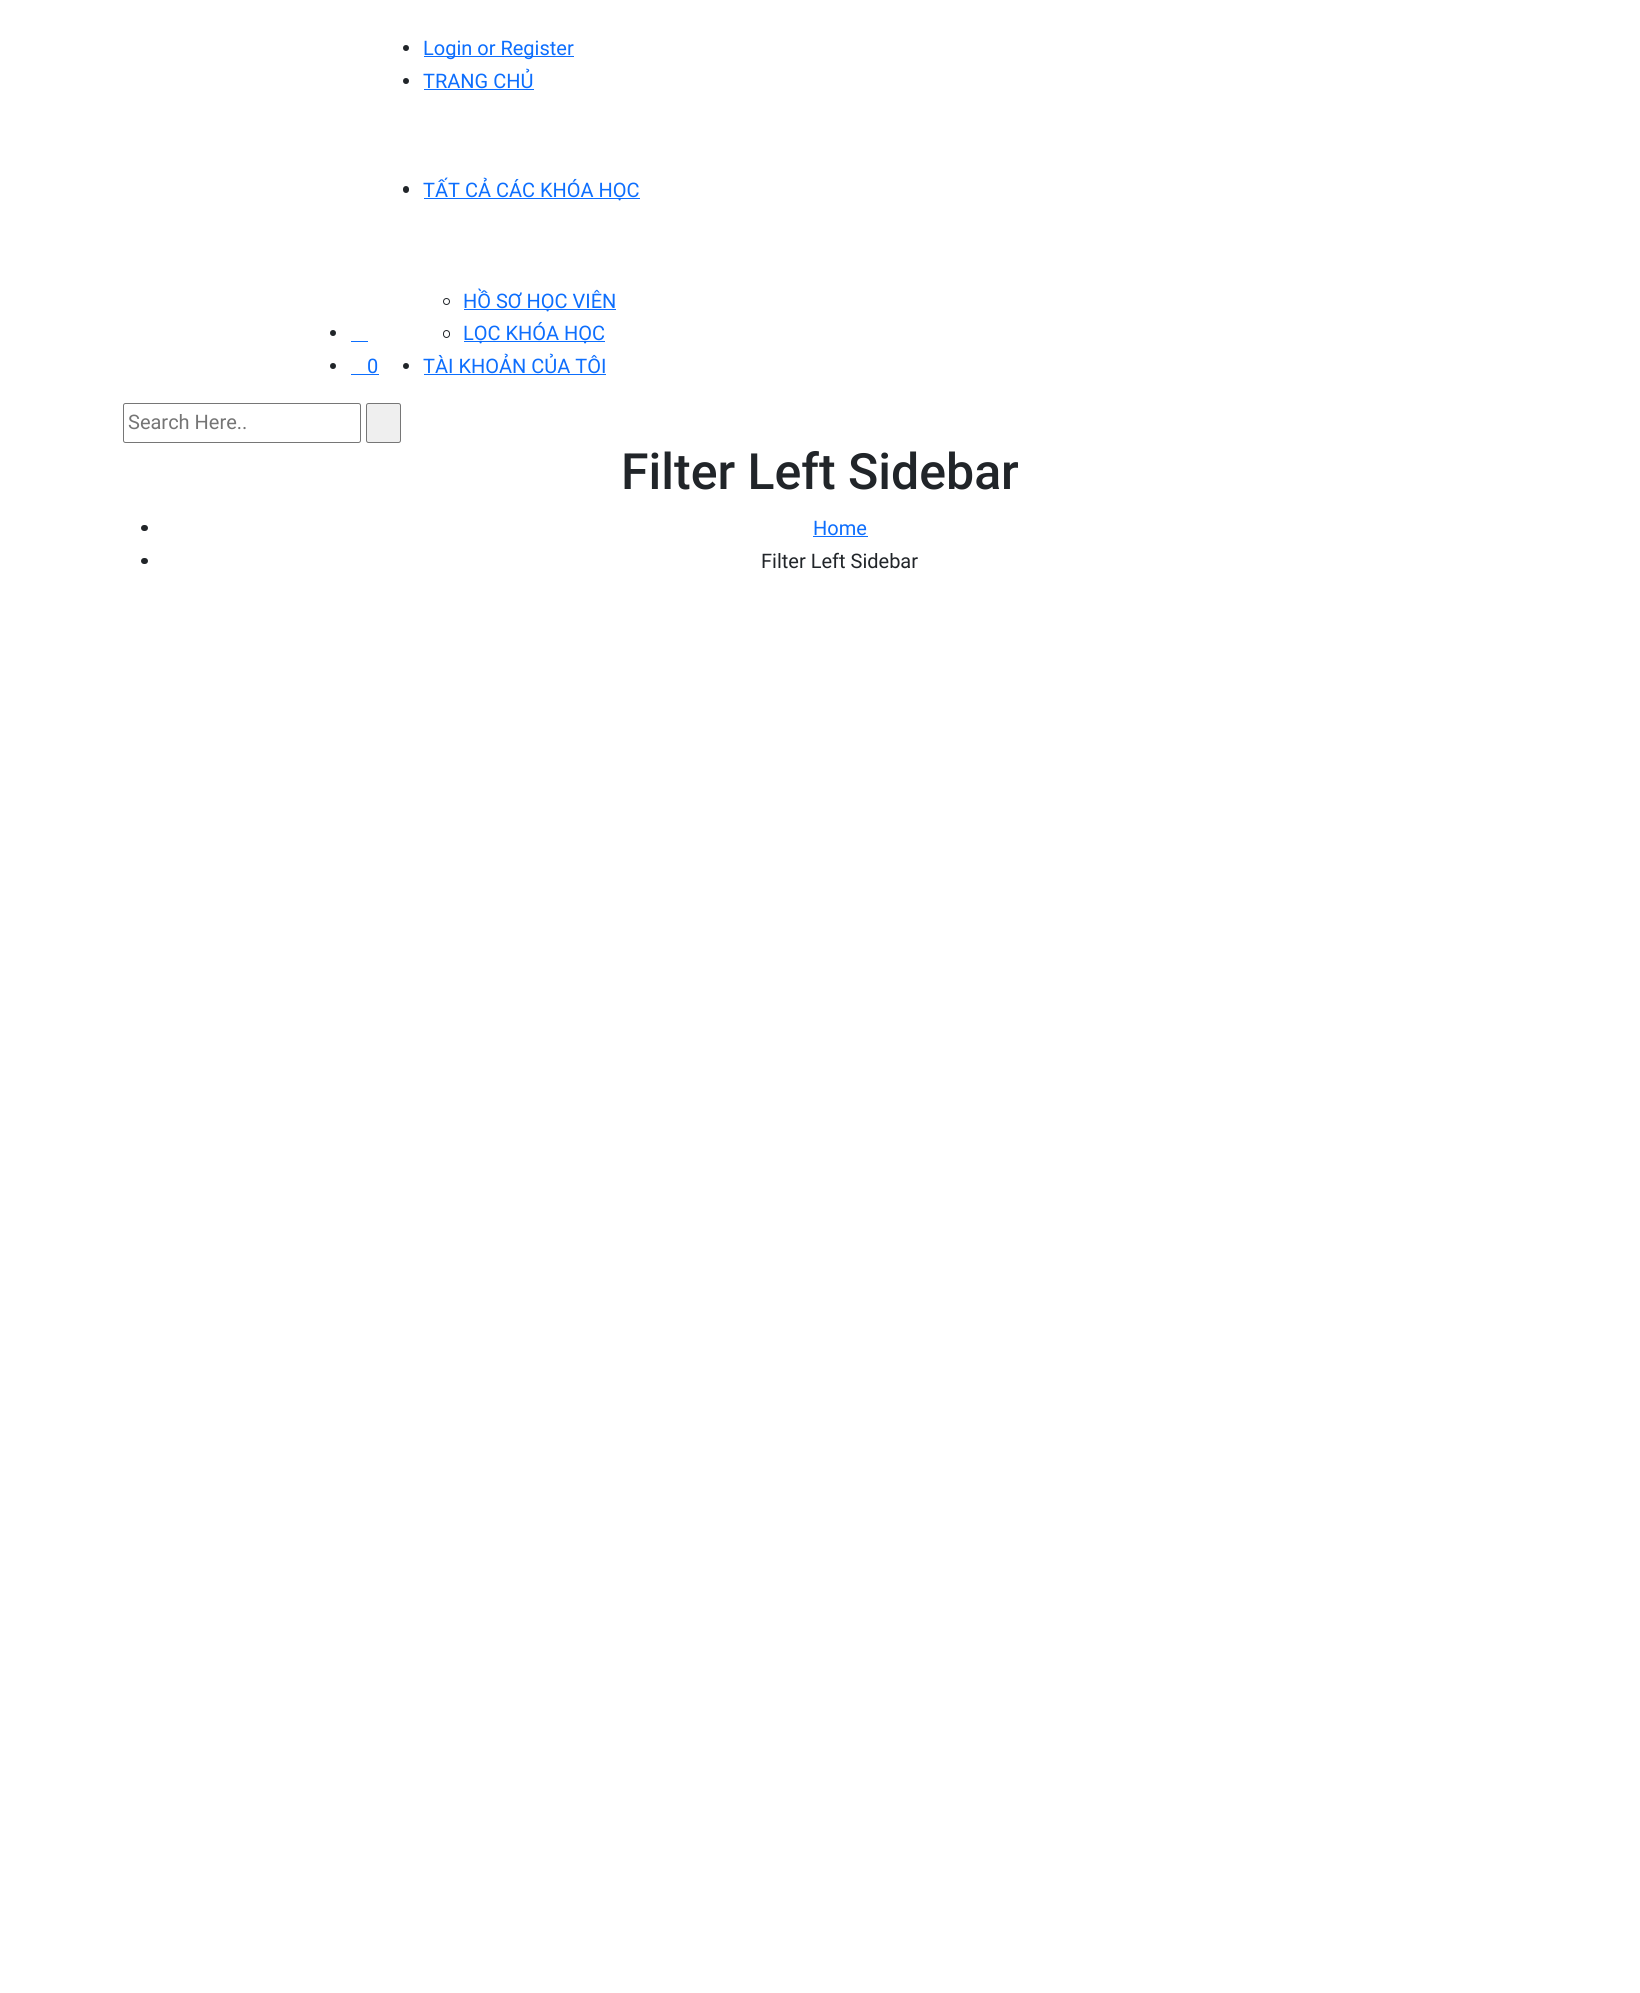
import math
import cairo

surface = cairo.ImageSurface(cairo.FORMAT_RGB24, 1640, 1993)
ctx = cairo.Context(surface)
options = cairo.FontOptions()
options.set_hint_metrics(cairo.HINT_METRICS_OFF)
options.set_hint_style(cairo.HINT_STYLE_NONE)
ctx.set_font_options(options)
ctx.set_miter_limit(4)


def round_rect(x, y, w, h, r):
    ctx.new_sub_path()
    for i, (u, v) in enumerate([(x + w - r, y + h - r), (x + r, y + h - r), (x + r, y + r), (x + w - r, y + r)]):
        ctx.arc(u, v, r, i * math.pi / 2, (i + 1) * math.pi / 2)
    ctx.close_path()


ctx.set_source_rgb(1, 1, 1)
ctx.paint()
ctx.set_source_rgb(0.129, 0.145, 0.161)
ctx.arc(333, 333, 3, 0, 2 * math.pi)
ctx.fill()
ctx.set_source_rgb(0.051, 0.431, 0.992)
ctx.rectangle(351, 341, 17, 1)
ctx.fill()
ctx.set_source_rgb(0.129, 0.145, 0.161)
ctx.arc(333, 366, 3, 0, 2 * math.pi)
ctx.fill()
ctx.select_font_face("Roboto")
ctx.set_font_size(20)
ctx.set_source_rgb(0.051, 0.431, 0.992)
ctx.move_to(367, 373)
ctx.show_text("0")
ctx.rectangle(351, 374, 28, 1)
ctx.fill()
ctx.set_source_rgb(0.129, 0.145, 0.161)
ctx.arc(406, 48, 3, 0, 2 * math.pi)
ctx.fill()
ctx.set_source_rgb(0.051, 0.431, 0.992)
ctx.rectangle(424, 56, 150, 1)
ctx.fill()
ctx.move_to(423, 55)
ctx.show_text("Login or Register")
ctx.set_source_rgb(0.129, 0.145, 0.161)
ctx.new_path()
ctx.arc(406, 81, 3, 0, 2 * math.pi)
ctx.fill()
ctx.set_source_rgb(0.051, 0.431, 0.992)
ctx.move_to(423, 88)
ctx.show_text("TRANG CHỦ")
ctx.rectangle(424, 89, 110, 1)
ctx.fill()
ctx.set_source_rgb(0.129, 0.145, 0.161)
round_rect(403, 186, 6, 7, 3)
ctx.fill()
ctx.set_source_rgb(0.051, 0.431, 0.992)
ctx.rectangle(424, 198, 216, 1)
ctx.fill()
ctx.move_to(423, 197)
ctx.show_text("TẤT CẢ CÁC KHÓA HỌC")
ctx.new_path()
ctx.arc(446.5, 301.5, 3, 0, 2 * math.pi)
ctx.set_source_rgb(0.129, 0.145, 0.161)
ctx.set_line_width(1)
ctx.stroke()
ctx.set_source_rgb(0.051, 0.431, 0.992)
ctx.rectangle(464, 309, 152, 1)
ctx.fill()
ctx.move_to(463, 308)
ctx.show_text("HỒ SƠ HỌC VIÊN")
round_rect(443.5, 330.5, 6, 7, 3)
ctx.set_source_rgb(0.129, 0.145, 0.161)
ctx.stroke()
ctx.set_source_rgb(0.051, 0.431, 0.992)
ctx.rectangle(464, 341, 141, 1)
ctx.fill()
ctx.move_to(463, 340)
ctx.show_text("LỌC KHÓA HỌC")
ctx.set_source_rgb(0.129, 0.145, 0.161)
ctx.new_path()
ctx.arc(406, 366, 3, 0, 2 * math.pi)
ctx.fill()
ctx.set_source_rgb(0.051, 0.431, 0.992)
ctx.move_to(423, 373)
ctx.show_text("TÀI KHOẢN CỦA TÔI")
ctx.rectangle(424, 374, 182, 1)
ctx.fill()
round_rect(123.5, 403.5, 237, 39, 2)
ctx.set_source_rgb(0.463, 0.463, 0.463)
ctx.stroke()
ctx.set_source_rgb(0.459, 0.459, 0.459)
ctx.move_to(128, 429)
ctx.show_text("Search Here..")
ctx.set_source_rgb(0.937, 0.937, 0.937)
round_rect(366.5, 403.5, 34, 39, 2)
ctx.fill_preserve()
ctx.set_source_rgb(0.463, 0.463, 0.463)
ctx.stroke()
ctx.select_font_face("Roboto Medium")
ctx.set_font_size(50)
ctx.set_source_rgb(0.129, 0.145, 0.161)
ctx.move_to(621, 489)
ctx.show_text("Filter Left Sidebar")
round_rect(141, 525, 7, 6, 3)
ctx.fill()
ctx.select_font_face("Roboto")
ctx.set_font_size(20)
ctx.set_source_rgb(0.051, 0.431, 0.992)
ctx.move_to(813, 535)
ctx.show_text("Home")
ctx.rectangle(813, 536, 55, 1)
ctx.fill()
ctx.set_source_rgb(0.129, 0.145, 0.161)
round_rect(141, 558, 7, 6, 3)
ctx.fill()
ctx.move_to(761, 568)
ctx.show_text("Filter Left Sidebar")
surface.write_to_png("page.png")
